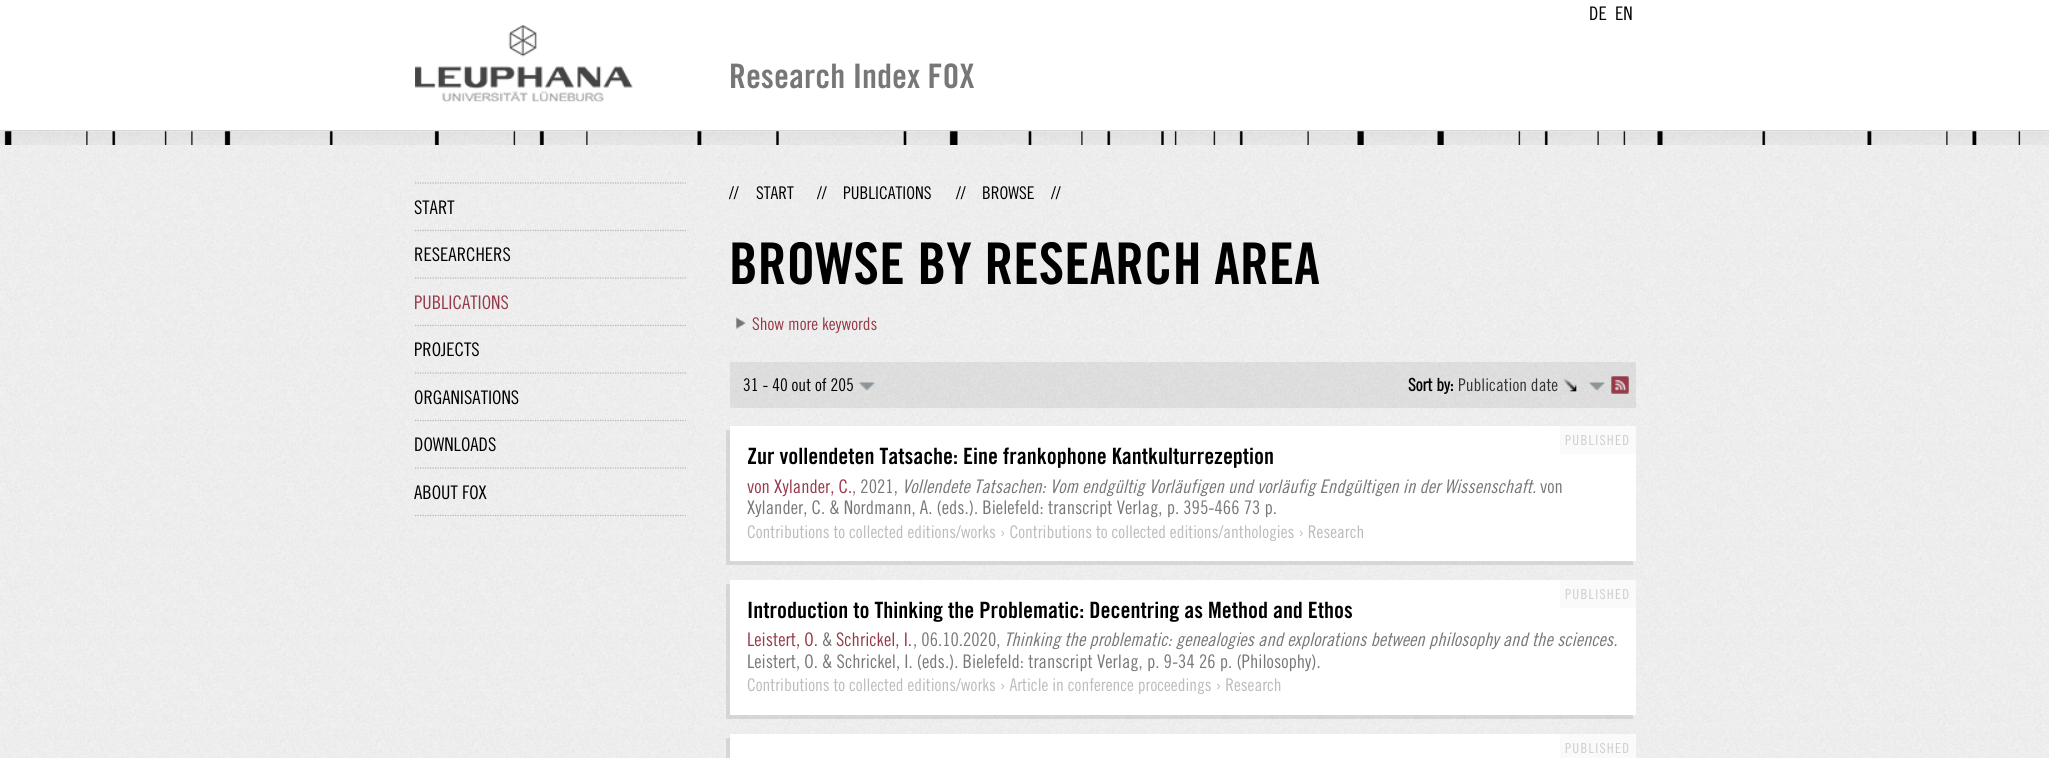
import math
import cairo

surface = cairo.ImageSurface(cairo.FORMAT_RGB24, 2049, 758)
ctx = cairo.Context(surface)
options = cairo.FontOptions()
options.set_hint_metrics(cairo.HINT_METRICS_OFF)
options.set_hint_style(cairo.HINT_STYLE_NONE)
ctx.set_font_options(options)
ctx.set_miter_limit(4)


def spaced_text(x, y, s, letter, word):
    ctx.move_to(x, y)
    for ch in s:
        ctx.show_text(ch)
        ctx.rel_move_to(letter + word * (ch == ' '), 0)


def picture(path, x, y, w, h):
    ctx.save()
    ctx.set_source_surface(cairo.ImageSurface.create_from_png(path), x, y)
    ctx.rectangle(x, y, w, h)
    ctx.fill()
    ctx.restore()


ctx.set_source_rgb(1, 1, 1)
ctx.paint()
picture("img1.png", 0, 145, 2049, 613)
ctx.set_source_rgb(0.839, 0.839, 0.839)
ctx.rectangle(0, 130, 2049, 1)
ctx.fill()
ctx.select_font_face("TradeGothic")
ctx.set_font_size(18.75)
ctx.set_source_rgb(0, 0, 0)
ctx.move_to(1589, 20)
ctx.show_text("DE")
ctx.move_to(1615, 20)
ctx.show_text("EN")
picture("img2.png", 415, 25, 218, 77)
ctx.select_font_face("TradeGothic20", cairo.FONT_SLANT_NORMAL, cairo.FONT_WEIGHT_BOLD)
ctx.set_font_size(33.75)
ctx.set_source_rgb(0.467, 0.467, 0.467)
ctx.move_to(729, 88)
ctx.show_text("Research Index FOX")
picture("img3.png", 0, 131, 2049, 14)
ctx.new_path()
ctx.move_to(415, 515.5)
ctx.line_to(686, 515.5)
ctx.set_source_rgb(0.71, 0.71, 0.71)
ctx.set_line_width(1.2)
ctx.set_dash([1.25, 1.25])
ctx.stroke()
ctx.new_path()
ctx.move_to(415, 183)
ctx.line_to(686, 183)
ctx.stroke()
ctx.select_font_face("TradeGothic")
ctx.set_font_size(18.75)
ctx.set_source_rgb(0, 0, 0)
ctx.move_to(414, 214)
ctx.show_text("START")
ctx.new_path()
ctx.move_to(415, 230.5)
ctx.line_to(686, 230.5)
ctx.set_source_rgb(0.71, 0.71, 0.71)
ctx.stroke()
ctx.set_source_rgb(0, 0, 0)
ctx.move_to(414, 261)
ctx.show_text("RESEARCHERS")
ctx.new_path()
ctx.move_to(415, 278)
ctx.line_to(686, 278)
ctx.set_source_rgb(0.71, 0.71, 0.71)
ctx.stroke()
ctx.set_source_rgb(0.592, 0.224, 0.282)
ctx.move_to(414, 309)
ctx.show_text("PUBLICATIONS")
ctx.new_path()
ctx.move_to(415, 325.5)
ctx.line_to(686, 325.5)
ctx.set_source_rgb(0.71, 0.71, 0.71)
ctx.stroke()
ctx.set_source_rgb(0, 0, 0)
ctx.move_to(414, 356)
ctx.show_text("PROJECTS")
ctx.new_path()
ctx.move_to(415, 373)
ctx.line_to(686, 373)
ctx.set_source_rgb(0.71, 0.71, 0.71)
ctx.stroke()
ctx.set_source_rgb(0, 0, 0)
ctx.move_to(414, 404)
ctx.show_text("ORGANISATIONS")
ctx.new_path()
ctx.move_to(415, 420.5)
ctx.line_to(686, 420.5)
ctx.set_source_rgb(0.71, 0.71, 0.71)
ctx.stroke()
ctx.set_source_rgb(0, 0, 0)
ctx.move_to(414, 451)
ctx.show_text("DOWNLOADS")
ctx.new_path()
ctx.move_to(415, 468)
ctx.line_to(686, 468)
ctx.set_source_rgb(0.71, 0.71, 0.71)
ctx.stroke()
ctx.set_source_rgb(0, 0, 0)
ctx.move_to(414, 499)
ctx.show_text("ABOUT FOX")
ctx.set_font_size(17.5)
ctx.move_to(729, 199)
ctx.show_text("//")
ctx.move_to(756, 199)
ctx.show_text("START")
ctx.move_to(817, 199)
ctx.show_text("//")
ctx.move_to(843, 199)
ctx.show_text("PUBLICATIONS")
ctx.move_to(956, 199)
ctx.show_text("//")
ctx.move_to(982, 199)
ctx.show_text("BROWSE")
ctx.move_to(1051, 199)
ctx.show_text("//")
ctx.select_font_face("TradeGothic20", cairo.FONT_SLANT_NORMAL, cairo.FONT_WEIGHT_BOLD)
ctx.set_font_size(57.5)
ctx.move_to(729, 284)
ctx.show_text("BROWSE BY RESEARCH AREA")
picture("img4.png", 736, 317, 10, 12)
ctx.select_font_face("TradeGothic")
ctx.set_font_size(17.5)
ctx.set_source_rgb(0.592, 0.224, 0.282)
ctx.move_to(752, 330)
ctx.show_text("Show more keywords")
ctx.set_source_rgba(0, 0, 0, 0.07)
ctx.rectangle(730, 362, 906, 46)
ctx.fill()
picture("img5.png", 858, 382, 17, 9)
ctx.set_source_rgb(0, 0, 0)
ctx.move_to(743, 391)
ctx.show_text("31 - 40 out of 205")
picture("img6.png", 1588, 382, 17, 9)
ctx.select_font_face("TradeGothic", cairo.FONT_SLANT_NORMAL, cairo.FONT_WEIGHT_BOLD)
ctx.move_to(1408, 391)
ctx.show_text("Sort by:")
ctx.select_font_face("TradeGothic")
ctx.set_source_rgb(0.2, 0.2, 0.2)
ctx.move_to(1458, 391)
ctx.show_text("Publication date")
picture("img7.png", 1563, 378, 14, 14)
picture("img8.png", 1611, 376, 18, 18)
ctx.set_source_rgba(0, 0, 0, 0.1)
ctx.new_path()
ctx.move_to(726, 430)
ctx.line_to(726, 565)
ctx.line_to(1633, 565)
ctx.line_to(1633, 561)
ctx.line_to(730, 561)
ctx.line_to(730, 430)
ctx.close_path()
ctx.fill()
ctx.set_source_rgb(1, 1, 1)
ctx.rectangle(730, 426, 906, 135)
ctx.fill()
ctx.set_source_rgb(0.98, 0.98, 0.98)
ctx.rectangle(1560, 426, 76, 28)
ctx.fill()
ctx.set_font_size(13.75)
ctx.set_source_rgb(0.8, 0.8, 0.8)
spaced_text(1565, 445, "PUBLISHED", 1.25, 0)
ctx.select_font_face("TradeGothic20", cairo.FONT_SLANT_NORMAL, cairo.FONT_WEIGHT_BOLD)
ctx.set_font_size(22.5)
ctx.set_source_rgb(0, 0, 0)
ctx.move_to(747, 464)
ctx.show_text("Zur vollendeten Tatsache: Eine frankophone Kantkulturrezeption")
ctx.select_font_face("TradeGothic")
ctx.set_font_size(18.75)
ctx.set_source_rgb(0.592, 0.224, 0.282)
ctx.move_to(747, 493)
ctx.show_text("von Xylander, C.")
ctx.set_source_rgb(0.467, 0.467, 0.467)
ctx.move_to(852, 493)
ctx.show_text(", 2021,")
ctx.select_font_face("TradeGothic", cairo.FONT_SLANT_ITALIC)
ctx.move_to(902, 493)
ctx.show_text("Vollendete Tatsachen: Vom endgültig Vorläufigen und vorläufig Endgültigen in der Wissenschaft.")
ctx.select_font_face("TradeGothic")
ctx.move_to(1540, 493)
ctx.show_text("von")
ctx.move_to(747, 514)
ctx.show_text("Xylander, C. & Nordmann, A. (eds.). Bielefeld: transcript Verlag, p. 395-466 73 p.")
ctx.set_font_size(17.5)
ctx.set_source_rgb(0.733, 0.733, 0.733)
ctx.move_to(747, 538)
ctx.show_text("Contributions to collected editions/works › Contributions to collected editions/anthologies › Research")
ctx.set_source_rgba(0, 0, 0, 0.1)
ctx.new_path()
ctx.move_to(726, 584)
ctx.line_to(726, 719)
ctx.line_to(1633, 719)
ctx.line_to(1633, 715)
ctx.line_to(730, 715)
ctx.line_to(730, 584)
ctx.close_path()
ctx.fill()
ctx.set_source_rgb(1, 1, 1)
ctx.rectangle(730, 580, 906, 135)
ctx.fill()
ctx.set_source_rgb(0.98, 0.98, 0.98)
ctx.rectangle(1560, 580, 76, 28)
ctx.fill()
ctx.set_font_size(13.75)
ctx.set_source_rgb(0.8, 0.8, 0.8)
spaced_text(1565, 599, "PUBLISHED", 1.25, 0)
ctx.select_font_face("TradeGothic20", cairo.FONT_SLANT_NORMAL, cairo.FONT_WEIGHT_BOLD)
ctx.set_font_size(22.5)
ctx.set_source_rgb(0, 0, 0)
ctx.move_to(747, 618)
ctx.show_text("Introduction to Thinking the Problematic: Decentring as Method and Ethos")
ctx.select_font_face("TradeGothic")
ctx.set_font_size(18.75)
ctx.set_source_rgb(0.592, 0.224, 0.282)
ctx.move_to(747, 646)
ctx.show_text("Leistert, O.")
ctx.set_source_rgb(0.467, 0.467, 0.467)
ctx.move_to(822, 646)
ctx.show_text("&")
ctx.set_source_rgb(0.592, 0.224, 0.282)
ctx.move_to(836, 646)
ctx.show_text("Schrickel, I.")
ctx.set_source_rgb(0.467, 0.467, 0.467)
ctx.move_to(913, 646)
ctx.show_text(", 06.10.2020,")
ctx.select_font_face("TradeGothic", cairo.FONT_SLANT_ITALIC)
ctx.move_to(1004, 646)
ctx.show_text("Thinking the problematic: genealogies and explorations between philosophy and the sciences.")
ctx.select_font_face("TradeGothic")
ctx.move_to(747, 668)
ctx.show_text("Leistert, O. & Schrickel, I. (eds.). Bielefeld: transcript Verlag, p. 9-34 26 p. (Philosophy).")
ctx.set_font_size(17.5)
ctx.set_source_rgb(0.733, 0.733, 0.733)
ctx.move_to(747, 691)
ctx.show_text("Contributions to collected editions/works › Article in conference proceedings › Research")
ctx.set_source_rgba(0, 0, 0, 0.1)
ctx.new_path()
ctx.move_to(726, 738)
ctx.line_to(726, 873)
ctx.line_to(1633, 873)
ctx.line_to(1633, 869)
ctx.line_to(730, 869)
ctx.line_to(730, 738)
ctx.close_path()
ctx.fill()
ctx.set_source_rgb(1, 1, 1)
ctx.rectangle(730, 734, 830, 24)
ctx.fill()
ctx.set_source_rgb(0.98, 0.98, 0.98)
ctx.rectangle(1560, 734, 76, 24)
ctx.fill()
ctx.set_font_size(13.75)
ctx.set_source_rgb(0.8, 0.8, 0.8)
spaced_text(1565, 753, "PUBLISHED", 1.25, 0)
surface.write_to_png("page.png")
